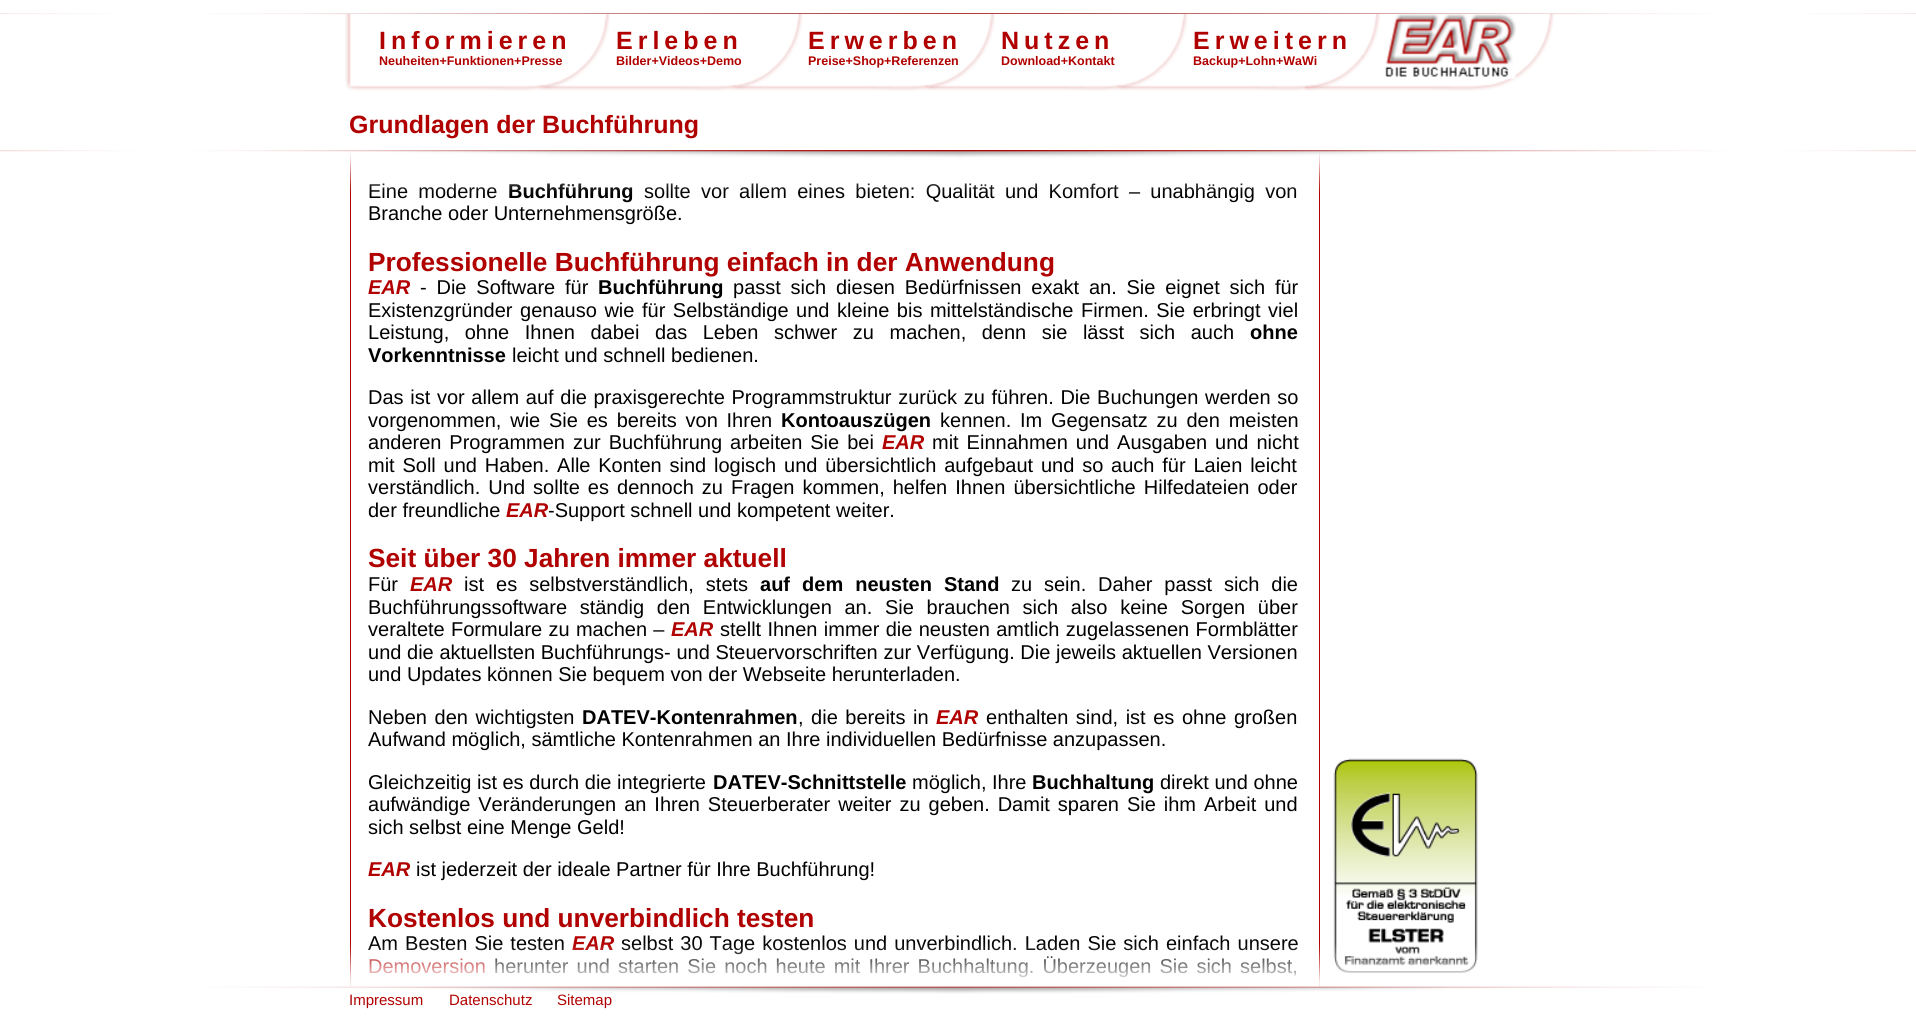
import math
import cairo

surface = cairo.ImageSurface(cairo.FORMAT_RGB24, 1916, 1017)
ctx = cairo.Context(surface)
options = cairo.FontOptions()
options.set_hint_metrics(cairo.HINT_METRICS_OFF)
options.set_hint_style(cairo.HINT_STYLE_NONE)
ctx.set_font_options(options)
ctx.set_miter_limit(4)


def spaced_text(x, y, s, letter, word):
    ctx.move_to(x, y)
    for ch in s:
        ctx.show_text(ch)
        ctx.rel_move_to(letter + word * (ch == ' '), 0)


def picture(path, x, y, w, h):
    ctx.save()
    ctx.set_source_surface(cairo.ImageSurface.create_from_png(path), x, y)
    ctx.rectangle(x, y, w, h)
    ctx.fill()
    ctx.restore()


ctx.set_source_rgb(1, 1, 1)
ctx.paint()
picture("img1.png", 0, 13, 1916, 2)
picture("img7.png", 1304, 14, 250, 77)
picture("img6.png", 1116, 14, 264, 77)
picture("img5.png", 923, 14, 265, 77)
picture("img4.png", 731, 14, 264, 77)
picture("img3.png", 538, 14, 265, 77)
picture("img2.png", 345, 14, 265, 77)
ctx.select_font_face("Liberation Sans", cairo.FONT_SLANT_NORMAL, cairo.FONT_WEIGHT_BOLD)
ctx.set_font_size(25)
ctx.set_source_rgb(0.694, 0, 0)
spaced_text(379, 49, "Informieren", 5, 0)
ctx.set_font_size(12.5)
ctx.move_to(379, 65)
ctx.show_text("Neuheiten+Funktionen+Presse")
ctx.set_font_size(25)
spaced_text(616, 49, "Erleben", 5, 0)
ctx.set_font_size(12.5)
ctx.move_to(616, 65)
ctx.show_text("Bilder+Videos+Demo")
ctx.set_font_size(25)
spaced_text(808, 49, "Erwerben", 5, 0)
ctx.set_font_size(12.5)
ctx.move_to(808, 65)
ctx.show_text("Preise+Shop+Referenzen")
ctx.set_font_size(25)
spaced_text(1001, 49, "Nutzen", 5, 0)
ctx.set_font_size(12.5)
ctx.move_to(1001, 65)
ctx.show_text("Download+Kontakt")
ctx.set_font_size(25)
spaced_text(1193, 49, "Erweitern", 5, 0)
ctx.set_font_size(12.5)
ctx.move_to(1193, 65)
ctx.show_text("Backup+Lohn+WaWi")
picture("img8.png", 1385, 14, 131, 65)
ctx.set_font_size(25)
ctx.move_to(349, 133)
ctx.show_text("Grundlagen der Buchführung")
ctx.rectangle(1319, 150, 1, 836)
ctx.fill()
ctx.rectangle(350, 150, 1, 836)
ctx.fill()
ctx.select_font_face("Liberation Sans")
ctx.set_font_size(20)
ctx.set_source_rgb(0, 0, 0)
spaced_text(368, 198, "Eine moderne", 0, 4.75)
ctx.select_font_face("Liberation Sans", cairo.FONT_SLANT_NORMAL, cairo.FONT_WEIGHT_BOLD)
ctx.move_to(508, 198)
ctx.show_text("Buchführung")
ctx.select_font_face("Liberation Sans")
spaced_text(644, 198, "sollte vor allem eines bieten: Qualität und Komfort – unabhängig von", 0, 4.75)
picture("img9.png", 0, 150, 1916, 43)
ctx.move_to(368, 220)
ctx.show_text("Branche oder Unternehmensgröße.")
ctx.select_font_face("Liberation Sans", cairo.FONT_SLANT_NORMAL, cairo.FONT_WEIGHT_BOLD)
ctx.set_font_size(26.25)
ctx.set_source_rgb(0.694, 0, 0)
ctx.move_to(368, 271)
ctx.show_text("Professionelle Buchführung einfach in der Anwendung")
ctx.select_font_face("Liberation Sans", cairo.FONT_SLANT_ITALIC, cairo.FONT_WEIGHT_BOLD)
ctx.set_font_size(20)
ctx.move_to(368, 294)
ctx.show_text("EAR")
ctx.select_font_face("Liberation Sans")
ctx.set_source_rgb(0, 0, 0)
spaced_text(420, 294, "- Die Software für", 0, 4.25)
ctx.select_font_face("Liberation Sans", cairo.FONT_SLANT_NORMAL, cairo.FONT_WEIGHT_BOLD)
ctx.move_to(598, 294)
ctx.show_text("Buchführung")
ctx.select_font_face("Liberation Sans")
spaced_text(733, 294, "passt sich diesen Bedürfnissen exakt an. Sie eignet sich für", 0, 4.25)
spaced_text(368, 317, "Existenzgründer genauso wie für Selbständige und kleine bis mittelständische Firmen. Sie erbringt viel", 0, 2)
spaced_text(368, 339, "Leistung, ohne Ihnen dabei das Leben schwer zu machen, denn sie lässt sich auch", 0, 10)
ctx.select_font_face("Liberation Sans", cairo.FONT_SLANT_NORMAL, cairo.FONT_WEIGHT_BOLD)
ctx.move_to(1250, 339)
ctx.show_text("ohne")
ctx.move_to(368, 362)
ctx.show_text("Vorkenntnisse")
ctx.select_font_face("Liberation Sans")
ctx.move_to(512, 362)
ctx.show_text("leicht und schnell bedienen.")
spaced_text(368, 404, "Das ist vor allem auf die praxisgerechte Programmstruktur zurück zu führen. Die Buchungen werden so", 0, 1.1)
spaced_text(368, 427, "vorgenommen, wie Sie es bereits von Ihren", 0, 3.25)
ctx.select_font_face("Liberation Sans", cairo.FONT_SLANT_NORMAL, cairo.FONT_WEIGHT_BOLD)
ctx.move_to(781, 427)
ctx.show_text("Kontoauszügen")
ctx.select_font_face("Liberation Sans")
spaced_text(940, 427, "kennen. Im Gegensatz zu den meisten", 0, 3.25)
spaced_text(368, 449, "anderen Programmen zur Buchführung arbeiten Sie bei", 0, 2.4)
ctx.select_font_face("Liberation Sans", cairo.FONT_SLANT_ITALIC, cairo.FONT_WEIGHT_BOLD)
ctx.set_source_rgb(0.694, 0, 0)
ctx.move_to(882, 449)
ctx.show_text("EAR")
ctx.select_font_face("Liberation Sans")
ctx.set_source_rgb(0, 0, 0)
spaced_text(932, 449, "mit Einnahmen und Ausgaben und nicht", 0, 2.4)
spaced_text(368, 472, "mit Soll und Haben. Alle Konten sind logisch und übersichtlich aufgebaut und so auch für Laien leicht", 0, 2.25)
spaced_text(368, 494, "verständlich. Und sollte es dennoch zu Fragen kommen, helfen Ihnen übersichtliche Hilfedateien oder", 0, 2.5)
ctx.move_to(368, 517)
ctx.show_text("der freundliche")
ctx.select_font_face("Liberation Sans", cairo.FONT_SLANT_ITALIC, cairo.FONT_WEIGHT_BOLD)
ctx.set_source_rgb(0.694, 0, 0)
ctx.move_to(506, 517)
ctx.show_text("EAR")
ctx.select_font_face("Liberation Sans")
ctx.set_source_rgb(0, 0, 0)
ctx.move_to(548, 517)
ctx.show_text("-Support schnell und kompetent weiter.")
ctx.select_font_face("Liberation Sans", cairo.FONT_SLANT_NORMAL, cairo.FONT_WEIGHT_BOLD)
ctx.set_font_size(26.25)
ctx.set_source_rgb(0.694, 0, 0)
ctx.move_to(368, 567)
ctx.show_text("Seit über 30 Jahren immer aktuell")
ctx.select_font_face("Liberation Sans")
ctx.set_font_size(20)
ctx.set_source_rgb(0, 0, 0)
ctx.move_to(368, 591)
ctx.show_text("Für")
ctx.select_font_face("Liberation Sans", cairo.FONT_SLANT_ITALIC, cairo.FONT_WEIGHT_BOLD)
ctx.set_source_rgb(0.694, 0, 0)
ctx.move_to(410, 591)
ctx.show_text("EAR")
ctx.select_font_face("Liberation Sans")
ctx.set_source_rgb(0, 0, 0)
spaced_text(464, 591, "ist es selbstverständlich, stets", 0, 6.5)
ctx.select_font_face("Liberation Sans", cairo.FONT_SLANT_NORMAL, cairo.FONT_WEIGHT_BOLD)
spaced_text(760, 591, "auf dem neusten Stand", 0, 6.5)
ctx.select_font_face("Liberation Sans")
spaced_text(1011, 591, "zu sein. Daher passt sich die", 0, 6.25)
spaced_text(368, 614, "Buchführungssoftware ständig den Entwicklungen an. Sie brauchen sich also keine Sorgen über", 0, 7.1)
spaced_text(368, 636, "veraltete Formulare zu machen –", 0, 0.75)
ctx.select_font_face("Liberation Sans", cairo.FONT_SLANT_ITALIC, cairo.FONT_WEIGHT_BOLD)
ctx.set_source_rgb(0.694, 0, 0)
ctx.move_to(671, 636)
ctx.show_text("EAR")
ctx.select_font_face("Liberation Sans")
ctx.set_source_rgb(0, 0, 0)
spaced_text(720, 636, "stellt Ihnen immer die neusten amtlich zugelassenen Formblätter", 0, 0.75)
spaced_text(368, 659, "und die aktuellsten Buchführungs- und Steuervorschriften zur Verfügung. Die jeweils aktuellen Versionen", 0, 0.1)
ctx.move_to(368, 681)
ctx.show_text("und Updates können Sie bequem von der Webseite herunterladen.")
spaced_text(368, 724, "Neben den wichtigsten", 0, 2)
ctx.select_font_face("Liberation Sans", cairo.FONT_SLANT_NORMAL, cairo.FONT_WEIGHT_BOLD)
ctx.move_to(582, 724)
ctx.show_text("DATEV-Kontenrahmen")
ctx.select_font_face("Liberation Sans")
spaced_text(798, 724, ", die bereits in", 0, 2)
ctx.select_font_face("Liberation Sans", cairo.FONT_SLANT_ITALIC, cairo.FONT_WEIGHT_BOLD)
ctx.set_source_rgb(0.694, 0, 0)
ctx.move_to(936, 724)
ctx.show_text("EAR")
ctx.select_font_face("Liberation Sans")
ctx.set_source_rgb(0, 0, 0)
spaced_text(986, 724, "enthalten sind, ist es ohne großen", 0, 2)
ctx.move_to(368, 746)
ctx.show_text("Aufwand möglich, sämtliche Kontenrahmen an Ihre individuellen Bedürfnisse anzupassen.")
ctx.move_to(368, 789)
ctx.show_text("Gleichzeitig ist es durch die integrierte")
ctx.select_font_face("Liberation Sans", cairo.FONT_SLANT_NORMAL, cairo.FONT_WEIGHT_BOLD)
ctx.move_to(713, 789)
ctx.show_text("DATEV-Schnittstelle")
ctx.select_font_face("Liberation Sans")
ctx.move_to(912, 789)
ctx.show_text("möglich, Ihre")
ctx.select_font_face("Liberation Sans", cairo.FONT_SLANT_NORMAL, cairo.FONT_WEIGHT_BOLD)
ctx.move_to(1032, 789)
ctx.show_text("Buchhaltung")
ctx.select_font_face("Liberation Sans")
ctx.move_to(1160, 789)
ctx.show_text("direkt und ohne")
spaced_text(368, 811, "aufwändige Veränderungen an Ihren Steuerberater weiter zu geben. Damit sparen Sie ihm Arbeit und", 0, 2.4)
ctx.move_to(368, 834)
ctx.show_text("sich selbst eine Menge Geld!")
ctx.select_font_face("Liberation Sans", cairo.FONT_SLANT_ITALIC, cairo.FONT_WEIGHT_BOLD)
ctx.set_source_rgb(0.694, 0, 0)
ctx.move_to(368, 876)
ctx.show_text("EAR")
ctx.select_font_face("Liberation Sans")
ctx.set_source_rgb(0, 0, 0)
ctx.move_to(416, 876)
ctx.show_text("ist jederzeit der ideale Partner für Ihre Buchführung!")
ctx.select_font_face("Liberation Sans", cairo.FONT_SLANT_NORMAL, cairo.FONT_WEIGHT_BOLD)
ctx.set_font_size(26.25)
ctx.set_source_rgb(0.694, 0, 0)
ctx.move_to(368, 927)
ctx.show_text("Kostenlos und unverbindlich testen")
ctx.select_font_face("Liberation Sans")
ctx.set_font_size(20)
ctx.set_source_rgb(0, 0, 0)
spaced_text(368, 950, "Am Besten Sie testen", 0, 1.5)
ctx.select_font_face("Liberation Sans", cairo.FONT_SLANT_ITALIC, cairo.FONT_WEIGHT_BOLD)
ctx.set_source_rgb(0.694, 0, 0)
ctx.move_to(572, 950)
ctx.show_text("EAR")
ctx.select_font_face("Liberation Sans")
ctx.set_source_rgb(0, 0, 0)
spaced_text(621, 950, "selbst 30 Tage kostenlos und unverbindlich. Laden Sie sich einfach unsere", 0, 1.5)
ctx.set_source_rgb(0.694, 0, 0)
ctx.move_to(368, 973)
ctx.show_text("Demoversion")
ctx.set_source_rgb(0, 0, 0)
spaced_text(494, 973, "herunter und starten Sie noch heute mit Ihrer Buchhaltung. Überzeugen Sie sich selbst,", 0, 2.5)
picture("img10.png", 1333, 758, 145, 215)
picture("img12.png", 208, 986, 1501, 8)
picture("img11.png", 208, 943, 1501, 44)
ctx.set_font_size(15)
ctx.set_source_rgb(0.694, 0, 0)
ctx.move_to(349, 1005)
ctx.show_text("Impressum")
ctx.move_to(449, 1005)
ctx.show_text("Datenschutz")
ctx.move_to(557, 1005)
ctx.show_text("Sitemap")
surface.write_to_png("page.png")
